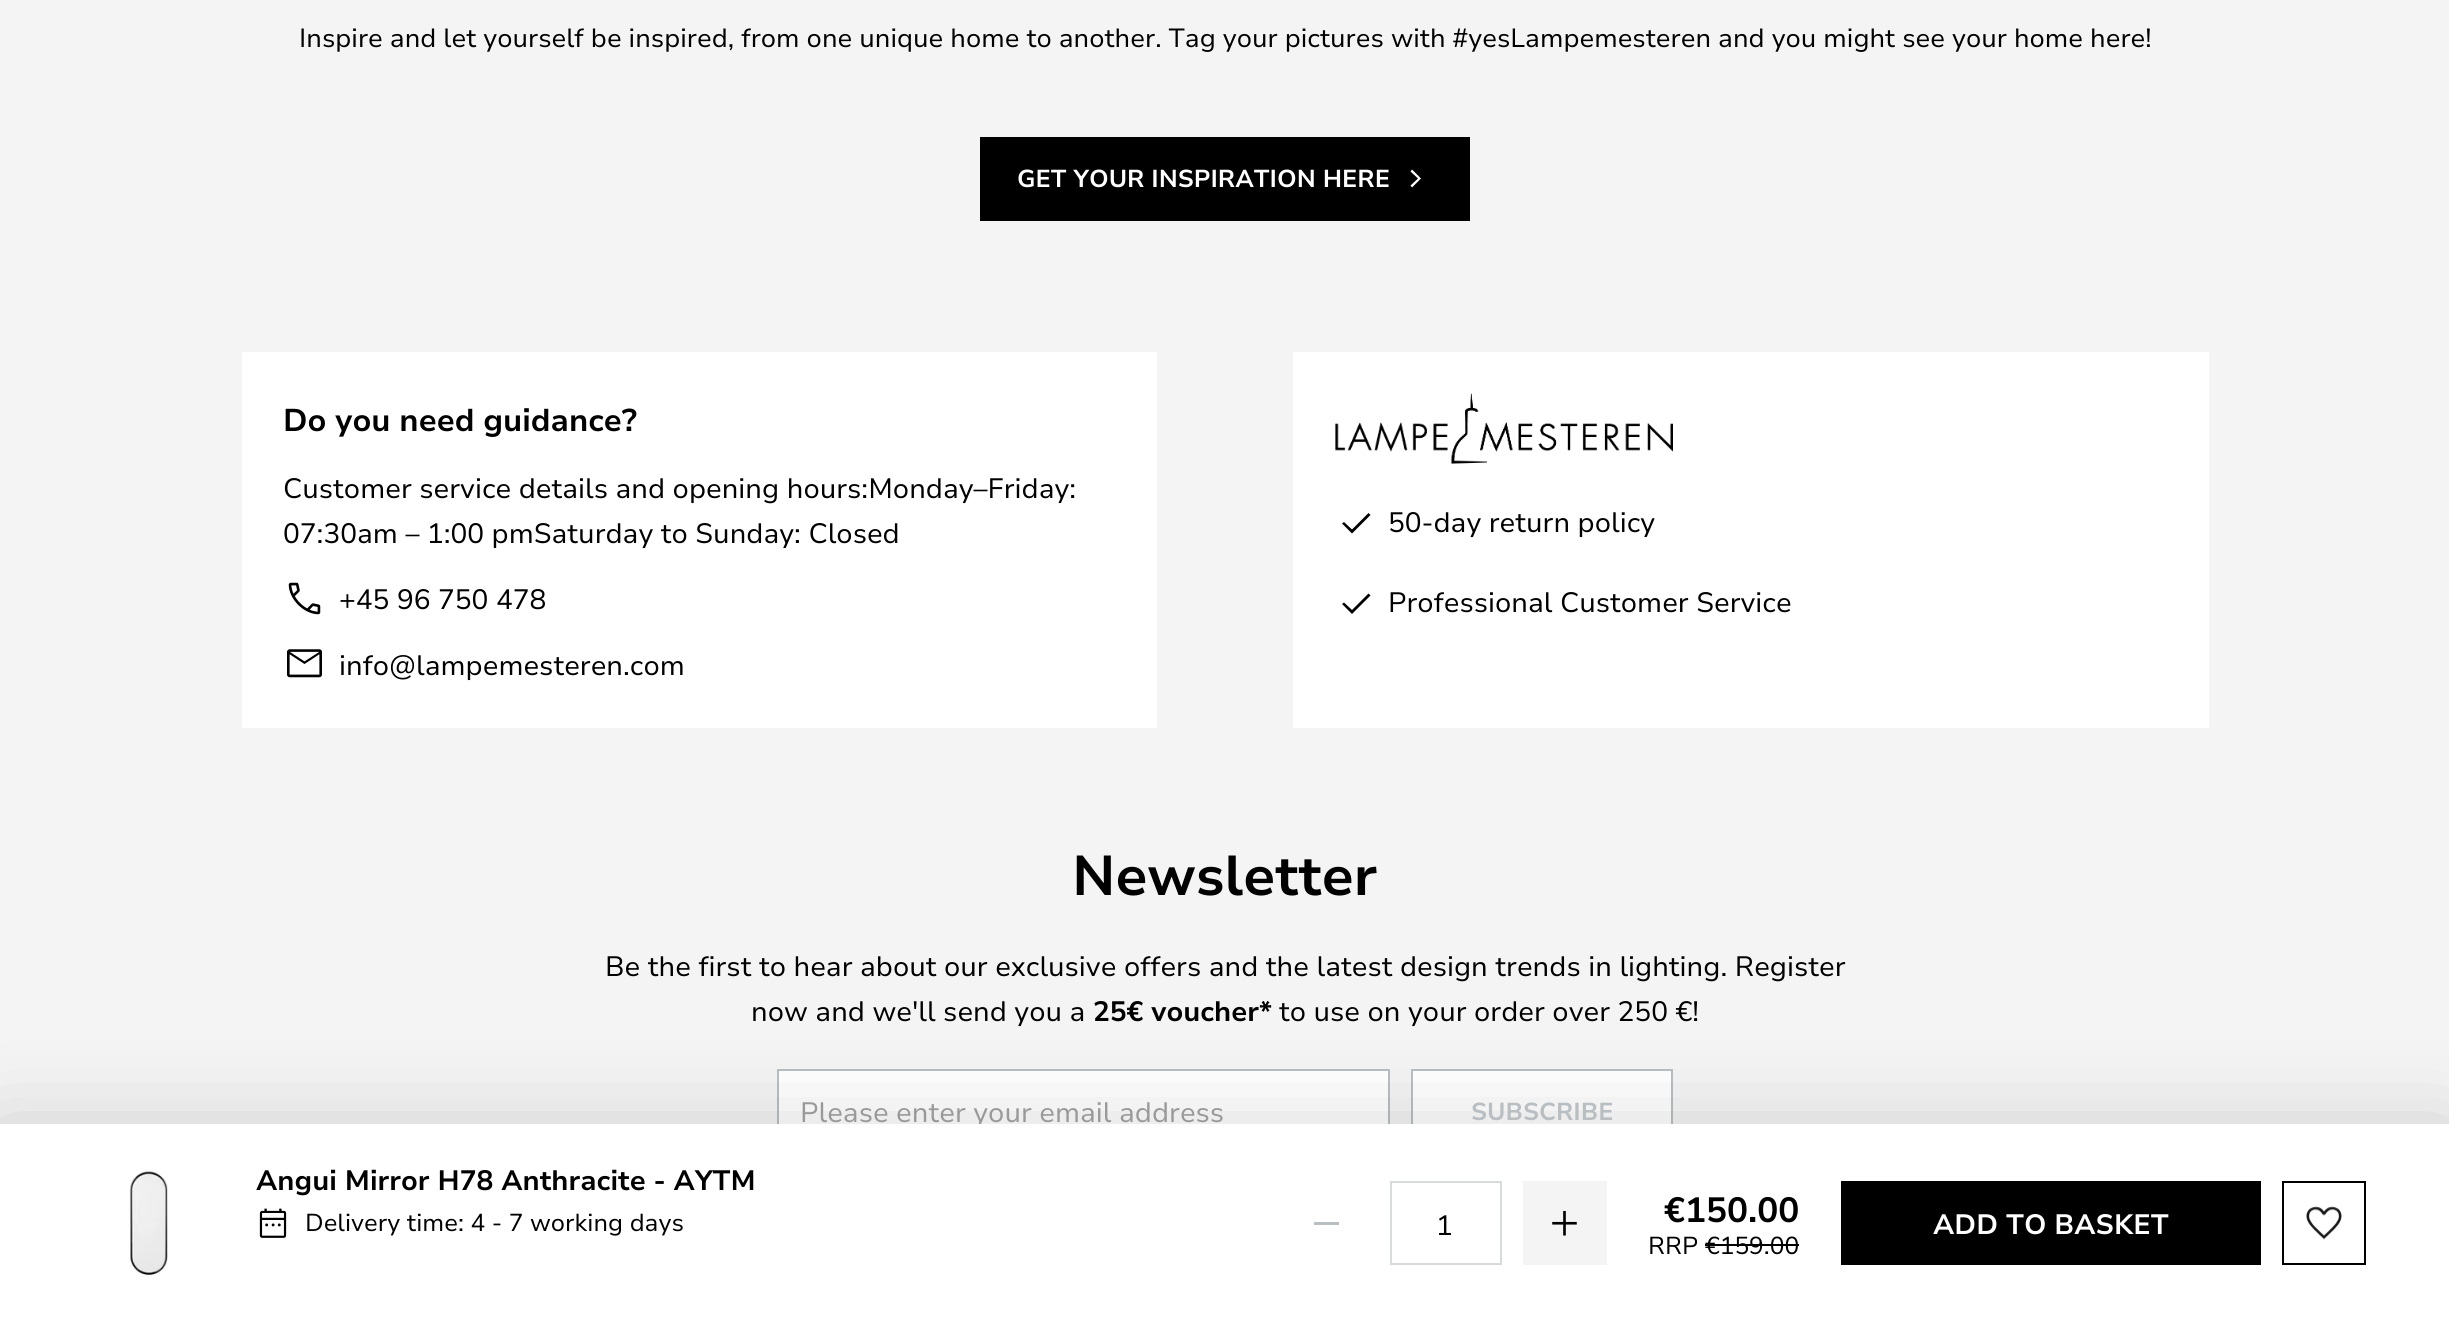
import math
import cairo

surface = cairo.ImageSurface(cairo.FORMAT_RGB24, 2449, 1322)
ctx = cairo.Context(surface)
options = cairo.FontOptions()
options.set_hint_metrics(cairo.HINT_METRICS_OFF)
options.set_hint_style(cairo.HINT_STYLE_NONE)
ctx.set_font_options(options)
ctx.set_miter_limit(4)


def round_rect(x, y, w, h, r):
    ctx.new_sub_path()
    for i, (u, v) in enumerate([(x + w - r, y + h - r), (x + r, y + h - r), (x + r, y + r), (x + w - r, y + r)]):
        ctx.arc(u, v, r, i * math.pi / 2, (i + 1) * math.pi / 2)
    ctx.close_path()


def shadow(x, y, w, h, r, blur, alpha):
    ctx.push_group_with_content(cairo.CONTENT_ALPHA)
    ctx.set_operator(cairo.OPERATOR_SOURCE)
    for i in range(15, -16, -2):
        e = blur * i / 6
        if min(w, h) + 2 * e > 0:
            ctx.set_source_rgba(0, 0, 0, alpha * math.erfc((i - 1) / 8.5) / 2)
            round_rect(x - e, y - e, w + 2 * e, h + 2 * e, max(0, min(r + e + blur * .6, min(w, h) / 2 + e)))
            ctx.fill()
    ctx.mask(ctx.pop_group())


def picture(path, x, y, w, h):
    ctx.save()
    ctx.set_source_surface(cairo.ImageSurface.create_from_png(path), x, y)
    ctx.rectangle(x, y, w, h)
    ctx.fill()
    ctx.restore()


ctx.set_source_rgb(0.957, 0.957, 0.957)
ctx.paint()
ctx.select_font_face("Nunito Sans")
ctx.set_font_size(26.25)
ctx.set_source_rgb(0, 0, 0)
ctx.move_to(299, 47)
ctx.show_text("Inspire and let yourself be inspired, from one unique home to another. Tag your pictures with #yesLampemesteren and you might see your home here!")
ctx.rectangle(980, 137, 490, 84)
ctx.fill()
ctx.select_font_face("Nunito Sans", cairo.FONT_SLANT_NORMAL, cairo.FONT_WEIGHT_BOLD)
ctx.set_font_size(24.5)
ctx.set_source_rgb(1, 1, 1)
ctx.move_to(1017, 187)
ctx.show_text("GET YOUR INSPIRATION HERE")
ctx.new_path()
ctx.move_to(1418, 178.5)
ctx.line_to(1410.5, 171.5)
ctx.line_to(1412, 169.5)
ctx.line_to(1421, 178.5)
ctx.line_to(1412, 187.5)
ctx.line_to(1410.5, 185.5)
ctx.close_path()
ctx.fill()
ctx.rectangle(242, 352, 915, 376)
ctx.fill()
ctx.set_font_size(31.5)
ctx.set_source_rgb(0, 0, 0)
ctx.move_to(283, 431)
ctx.show_text("Do you need guidance?")
ctx.select_font_face("Nunito Sans")
ctx.set_font_size(28)
ctx.move_to(283, 498)
ctx.show_text("Customer service details and opening hours:Monday–Friday:")
ctx.move_to(283, 543)
ctx.show_text("07:30am – 1:00 pmSaturday to Sunday: Closed")
picture("img1.png", 288, 582, 33, 33)
ctx.move_to(339, 609)
ctx.show_text("+45 96 750 478")
picture("img2.png", 287, 649, 35, 29)
ctx.move_to(339, 675)
ctx.show_text("info@lampemesteren.com")
ctx.set_source_rgb(1, 1, 1)
ctx.rectangle(1293, 352, 916, 376)
ctx.fill()
picture("img3.png", 1335, 393, 338, 71)
ctx.set_source_rgb(0, 0, 0)
ctx.new_path()
ctx.move_to(1352, 533.5)
ctx.line_to(1342, 523.5)
ctx.line_to(1344, 522)
ctx.line_to(1352, 529.5)
ctx.line_to(1368.5, 513)
ctx.line_to(1370.5, 515)
ctx.close_path()
ctx.fill()
ctx.move_to(1388, 532)
ctx.show_text("50-day return policy")
ctx.new_path()
ctx.move_to(1352, 614)
ctx.line_to(1342, 604)
ctx.line_to(1344, 602.5)
ctx.line_to(1352, 610)
ctx.line_to(1368.5, 593.5)
ctx.line_to(1370.5, 595.5)
ctx.close_path()
ctx.fill()
ctx.move_to(1388, 612)
ctx.show_text("Professional Customer Service")
ctx.set_source_rgb(1, 1, 1)
ctx.rectangle(779, 1071, 609, 53)
ctx.fill()
ctx.rectangle(778, 1070, 611, 82)
ctx.set_source_rgb(0.725, 0.745, 0.761)
ctx.stroke()
ctx.set_source_rgb(1, 1, 1)
ctx.rectangle(1413, 1071, 258, 53)
ctx.fill()
ctx.rectangle(1412, 1070, 260, 82)
ctx.set_source_rgb(0.725, 0.745, 0.761)
ctx.stroke()
ctx.set_source_rgb(0, 0, 0)
shadow(0, 1132, 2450, 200, 0, 42, 0.2)
ctx.set_source_rgb(0.6, 0.6, 0.6)
ctx.move_to(800, 1122)
ctx.show_text("Please enter your email address")
ctx.set_source_rgb(1, 1, 1)
ctx.rectangle(0, 1124, 2449, 198)
ctx.fill()
picture("img4.png", 129, 1169, 39, 108)
ctx.select_font_face("Nunito Sans", cairo.FONT_SLANT_NORMAL, cairo.FONT_WEIGHT_BOLD)
ctx.set_source_rgb(0, 0, 0)
ctx.move_to(256, 1190)
ctx.show_text("Angui Mirror H78 Anthracite - AYTM")
picture("img5.png", 259, 1208, 28, 30)
ctx.select_font_face("Nunito Sans")
ctx.set_font_size(24.5)
ctx.move_to(305, 1231)
ctx.show_text("Delivery time: 4 - 7 working days")
ctx.set_source_rgb(0.725, 0.745, 0.761)
ctx.rectangle(1314, 1222, 25, 3)
ctx.fill()
ctx.rectangle(1391, 1182, 110, 82)
ctx.set_source_rgb(0.843, 0.859, 0.867)
ctx.stroke()
ctx.set_font_size(28)
ctx.set_source_rgb(0, 0, 0)
ctx.move_to(1436, 1235)
ctx.show_text("1")
ctx.set_source_rgb(0.957, 0.957, 0.957)
ctx.rectangle(1523, 1181, 84, 84)
ctx.fill()
picture("img6.png", 1552, 1211, 25, 25)
ctx.select_font_face("Nunito Sans", cairo.FONT_SLANT_NORMAL, cairo.FONT_WEIGHT_BOLD)
ctx.set_font_size(35)
ctx.set_source_rgb(0, 0, 0)
ctx.move_to(1664, 1222)
ctx.show_text("€150.00")
ctx.select_font_face("Nunito Sans")
ctx.set_font_size(24.5)
ctx.move_to(1648, 1254)
ctx.show_text("RRP")
ctx.move_to(1705, 1254)
ctx.show_text("€159.00")
ctx.rectangle(1705, 1244, 94, 2)
ctx.fill()
ctx.rectangle(1841, 1181, 420, 84)
ctx.fill()
ctx.select_font_face("Nunito Sans", cairo.FONT_SLANT_NORMAL, cairo.FONT_WEIGHT_BOLD)
ctx.set_font_size(28)
ctx.set_source_rgb(1, 1, 1)
ctx.move_to(1933, 1234)
ctx.show_text("ADD TO BASKET")
ctx.rectangle(2283, 1182, 82, 82)
ctx.set_source_rgb(0, 0, 0)
ctx.stroke()
picture("img7.png", 2306, 1206, 36, 34)
ctx.set_font_size(56)
ctx.move_to(1072, 895)
ctx.show_text("Newsletter")
ctx.select_font_face("Nunito Sans")
ctx.set_font_size(28)
ctx.move_to(605, 976)
ctx.show_text("Be the first to hear about our exclusive offers and the latest design trends in lighting. Register")
ctx.move_to(751, 1021)
ctx.show_text("now and we'll send you a")
ctx.select_font_face("Nunito Sans", cairo.FONT_SLANT_NORMAL, cairo.FONT_WEIGHT_BOLD)
ctx.move_to(1093, 1021)
ctx.show_text("25€ voucher*")
ctx.select_font_face("Nunito Sans")
ctx.move_to(1279, 1021)
ctx.show_text("to use on your order over 250 €!")
ctx.select_font_face("Nunito Sans", cairo.FONT_SLANT_NORMAL, cairo.FONT_WEIGHT_BOLD)
ctx.set_font_size(24.5)
ctx.set_source_rgb(0.725, 0.745, 0.761)
ctx.move_to(1471, 1120)
ctx.show_text("SUBSCRIBE")
surface.write_to_png("page.png")
